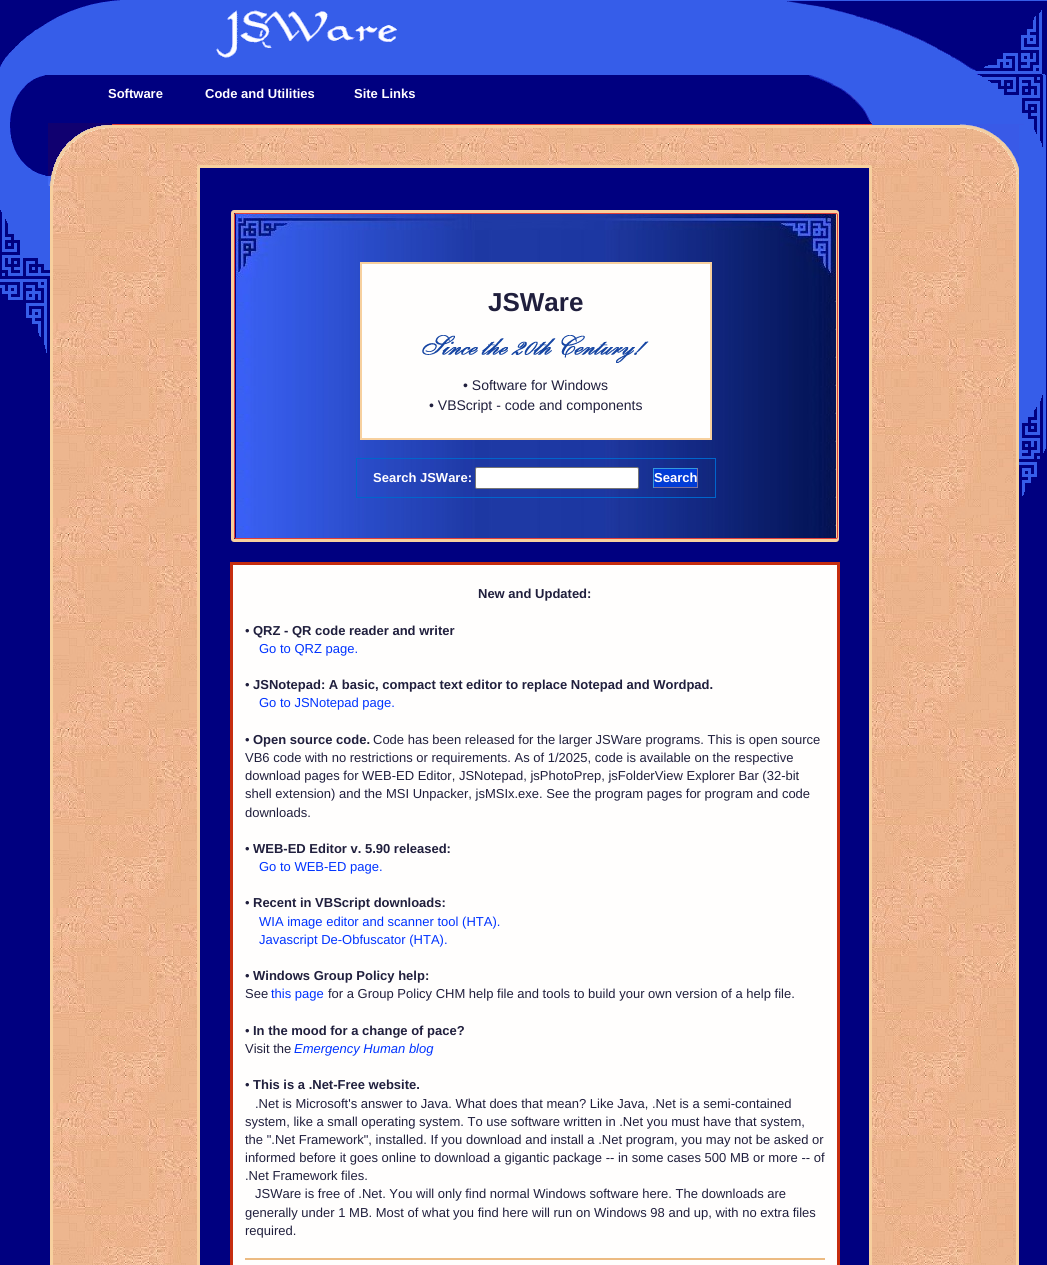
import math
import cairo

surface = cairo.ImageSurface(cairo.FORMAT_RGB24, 1047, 1265)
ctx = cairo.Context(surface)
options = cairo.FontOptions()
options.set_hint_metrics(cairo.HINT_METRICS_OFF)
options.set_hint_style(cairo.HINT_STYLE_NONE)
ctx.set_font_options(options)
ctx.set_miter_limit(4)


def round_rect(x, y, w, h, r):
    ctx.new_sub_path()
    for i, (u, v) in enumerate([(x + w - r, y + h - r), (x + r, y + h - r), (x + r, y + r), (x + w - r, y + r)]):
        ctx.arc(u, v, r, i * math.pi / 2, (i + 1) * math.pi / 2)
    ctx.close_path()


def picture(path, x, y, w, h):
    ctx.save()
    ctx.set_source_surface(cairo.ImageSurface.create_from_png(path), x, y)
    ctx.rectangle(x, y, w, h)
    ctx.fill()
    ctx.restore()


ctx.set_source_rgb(0, 0, 0.502)
ctx.paint()
ctx.set_source_rgb(0.212, 0.365, 0.914)
ctx.rectangle(0, 0, 1047, 75)
ctx.fill()
picture("img1.png", 0, 0, 397, 67)
picture("img2.png", 787, 1, 260, 74)
picture("img3.png", 0, 75, 45, 50)
ctx.set_source_rgb(0.878, 0.247, 0.227)
ctx.rectangle(112, 124, 683, 1)
ctx.fill()
ctx.select_font_face("Liberation Sans", cairo.FONT_SLANT_NORMAL, cairo.FONT_WEIGHT_BOLD)
ctx.set_font_size(13)
ctx.set_source_rgb(1, 0.992, 1)
ctx.move_to(108, 98)
ctx.show_text("Software")
ctx.move_to(205, 98)
ctx.show_text("Code and Utilities")
ctx.move_to(354, 98)
ctx.show_text("Site Links")
picture("img4.png", 795, 75, 251, 50)
picture("img5.png", 0, 125, 50, 228)
ctx.rectangle(51.5, 126.5, 966, 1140)
ctx.set_source_rgb(0.965, 0.816, 0.62)
ctx.set_line_width(3)
ctx.stroke()
picture("img6.png", 53, 128, 963, 1137)
picture("img7.png", 48, 123, 64, 63)
picture("img8.png", 960, 124, 64, 60)
ctx.set_source_rgb(0, 0, 0.502)
round_rect(198.5, 166.5, 672, 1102, 0.5)
ctx.fill_preserve()
ctx.set_source_rgb(0.965, 0.816, 0.62)
ctx.stroke()
round_rect(232.5, 211.5, 605, 329, 1.5)
ctx.stroke()
round_rect(234.5, 213.5, 603, 325, 1.5)
ctx.set_source_rgb(0.878, 0.247, 0.227)
ctx.set_line_width(1)
ctx.stroke()
picture("img9.png", 236, 214, 600, 88)
picture("img10.png", 236, 302, 600, 236)
ctx.set_source_rgb(1, 0.996, 0.992)
ctx.rectangle(361, 263, 350, 176)
ctx.fill_preserve()
ctx.set_source_rgb(0.965, 0.816, 0.62)
ctx.set_line_width(2)
ctx.stroke()
ctx.set_font_size(26)
ctx.set_source_rgb(0.125, 0.122, 0.239)
ctx.move_to(488, 311)
ctx.show_text("JSWare")
picture("img11.png", 422, 335, 227, 28)
ctx.select_font_face("Liberation Sans")
ctx.set_font_size(14)
ctx.move_to(463, 390)
ctx.show_text("• Software for Windows")
ctx.move_to(429, 410)
ctx.show_text("• VBScript - code and components")
ctx.rectangle(356.5, 458.5, 359, 39)
ctx.set_source_rgb(0, 0.4, 0.8)
ctx.set_line_width(1)
ctx.stroke()
ctx.select_font_face("Liberation Sans", cairo.FONT_SLANT_NORMAL, cairo.FONT_WEIGHT_BOLD)
ctx.set_font_size(13)
ctx.set_source_rgb(1, 0.992, 1)
ctx.move_to(373, 482)
ctx.show_text("Search JSWare:")
ctx.set_source_rgb(1, 1, 1)
round_rect(475.5, 467.5, 163, 21, 1.5)
ctx.fill_preserve()
ctx.set_source_rgb(0.463, 0.463, 0.463)
ctx.stroke()
ctx.set_source_rgb(0.004, 0.235, 0.839)
ctx.rectangle(654, 469, 43, 18)
ctx.fill()
ctx.set_source_rgb(0.2, 0.6, 0.867)
ctx.rectangle(653, 468, 45, 1)
ctx.fill()
ctx.set_source_rgb(0.49, 0.443, 0.616)
ctx.rectangle(697, 468, 1, 20)
ctx.fill()
ctx.rectangle(653, 487, 45, 1)
ctx.fill()
ctx.set_source_rgb(0.2, 0.6, 0.867)
ctx.rectangle(653, 468, 1, 20)
ctx.fill()
ctx.set_source_rgb(1, 0.992, 1)
ctx.move_to(654, 482)
ctx.show_text("Search")
ctx.set_source_rgb(1, 0.996, 0.992)
ctx.rectangle(231.5, 563.5, 607, 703)
ctx.fill_preserve()
ctx.set_source_rgb(0.773, 0.176, 0.059)
ctx.set_line_width(3)
ctx.stroke()
ctx.set_source_rgb(0.125, 0.122, 0.239)
ctx.move_to(478, 598)
ctx.show_text("New and Updated:")
ctx.select_font_face("Liberation Sans")
ctx.move_to(245, 635)
ctx.show_text("•")
ctx.select_font_face("Liberation Sans", cairo.FONT_SLANT_NORMAL, cairo.FONT_WEIGHT_BOLD)
ctx.move_to(253, 635)
ctx.show_text("QRZ - QR code reader and writer")
ctx.select_font_face("Liberation Sans")
ctx.set_source_rgb(0, 0.2, 1)
ctx.move_to(259, 653)
ctx.show_text("Go to QRZ page.")
ctx.set_source_rgb(0.125, 0.122, 0.239)
ctx.move_to(245, 689)
ctx.show_text("•")
ctx.select_font_face("Liberation Sans", cairo.FONT_SLANT_NORMAL, cairo.FONT_WEIGHT_BOLD)
ctx.move_to(253, 689)
ctx.show_text("JSNotepad: A basic, compact text editor to replace Notepad and Wordpad.")
ctx.select_font_face("Liberation Sans")
ctx.set_source_rgb(0, 0.2, 1)
ctx.move_to(259, 707)
ctx.show_text("Go to JSNotepad page.")
ctx.set_source_rgb(0.125, 0.122, 0.239)
ctx.move_to(245, 744)
ctx.show_text("•")
ctx.select_font_face("Liberation Sans", cairo.FONT_SLANT_NORMAL, cairo.FONT_WEIGHT_BOLD)
ctx.move_to(253, 744)
ctx.show_text("Open source code.")
ctx.select_font_face("Liberation Sans")
ctx.move_to(373, 744)
ctx.show_text("Code has been released for the larger JSWare programs. This is open source")
ctx.move_to(245, 762)
ctx.show_text("VB6 code with no restrictions or requirements. As of 1/2025, code is available on the respective")
ctx.move_to(245, 780)
ctx.show_text("download pages for WEB-ED Editor, JSNotepad, jsPhotoPrep, jsFolderView Explorer Bar (32-bit")
ctx.move_to(245, 798)
ctx.show_text("shell extension) and the MSI Unpacker, jsMSIx.exe. See the program pages for program and code")
ctx.move_to(245, 817)
ctx.show_text("downloads.")
ctx.move_to(245, 853)
ctx.show_text("•")
ctx.select_font_face("Liberation Sans", cairo.FONT_SLANT_NORMAL, cairo.FONT_WEIGHT_BOLD)
ctx.move_to(253, 853)
ctx.show_text("WEB-ED Editor v. 5.90 released:")
ctx.select_font_face("Liberation Sans")
ctx.set_source_rgb(0, 0.2, 1)
ctx.move_to(259, 871)
ctx.show_text("Go to WEB-ED page.")
ctx.set_source_rgb(0.125, 0.122, 0.239)
ctx.move_to(245, 907)
ctx.show_text("•")
ctx.select_font_face("Liberation Sans", cairo.FONT_SLANT_NORMAL, cairo.FONT_WEIGHT_BOLD)
ctx.move_to(253, 907)
ctx.show_text("Recent in VBScript downloads:")
ctx.select_font_face("Liberation Sans")
ctx.set_source_rgb(0, 0.2, 1)
ctx.move_to(259, 926)
ctx.show_text("WIA image editor and scanner tool (HTA).")
ctx.move_to(259, 944)
ctx.show_text("Javascript De-Obfuscator (HTA).")
ctx.set_source_rgb(0.125, 0.122, 0.239)
ctx.move_to(245, 980)
ctx.show_text("•")
ctx.select_font_face("Liberation Sans", cairo.FONT_SLANT_NORMAL, cairo.FONT_WEIGHT_BOLD)
ctx.move_to(253, 980)
ctx.show_text("Windows Group Policy help:")
ctx.select_font_face("Liberation Sans")
ctx.move_to(245, 998)
ctx.show_text("See")
ctx.set_source_rgb(0, 0.2, 1)
ctx.move_to(271, 998)
ctx.show_text("this page")
ctx.set_source_rgb(0.125, 0.122, 0.239)
ctx.move_to(328, 998)
ctx.show_text("for a Group Policy CHM help file and tools to build your own version of a help file.")
ctx.move_to(245, 1035)
ctx.show_text("•")
ctx.select_font_face("Liberation Sans", cairo.FONT_SLANT_NORMAL, cairo.FONT_WEIGHT_BOLD)
ctx.move_to(253, 1035)
ctx.show_text("In the mood for a change of pace?")
ctx.select_font_face("Liberation Sans")
ctx.move_to(245, 1053)
ctx.show_text("Visit the")
ctx.select_font_face("Liberation Sans", cairo.FONT_SLANT_ITALIC)
ctx.set_source_rgb(0, 0.2, 1)
ctx.move_to(294, 1053)
ctx.show_text("Emergency Human blog")
ctx.select_font_face("Liberation Sans")
ctx.set_source_rgb(0.125, 0.122, 0.239)
ctx.move_to(245, 1089)
ctx.show_text("•")
ctx.select_font_face("Liberation Sans", cairo.FONT_SLANT_NORMAL, cairo.FONT_WEIGHT_BOLD)
ctx.move_to(253, 1089)
ctx.show_text("This is a .Net-Free website.")
ctx.select_font_face("Liberation Sans")
ctx.move_to(255, 1108)
ctx.show_text(".Net is Microsoft's answer to Java. What does that mean? Like Java, .Net is a semi-contained")
ctx.move_to(245, 1126)
ctx.show_text("system, like a small operating system. To use software written in .Net you must have that system,")
ctx.move_to(245, 1144)
ctx.show_text("the \".Net Framework\", installed. If you download and install a .Net program, you may not be asked or")
ctx.move_to(245, 1162)
ctx.show_text("informed before it goes online to download a gigantic package -- in some cases 500 MB or more -- of")
ctx.move_to(245, 1180)
ctx.show_text(".Net Framework files.")
ctx.move_to(255, 1198)
ctx.show_text("JSWare is free of .Net. You will only find normal Windows software here. The downloads are")
ctx.move_to(245, 1217)
ctx.show_text("generally under 1 MB. Most of what you find here will run on Windows 98 and up, with no extra files")
ctx.move_to(245, 1235)
ctx.show_text("required.")
ctx.set_source_rgb(0.925, 0.733, 0.51)
ctx.rectangle(245, 1258, 580, 2)
ctx.fill()
ctx.set_source_rgb(0, 0, 0.502)
ctx.rectangle(1019, 125, 5, 59)
ctx.fill()
picture("img12.png", 1019, 125, 27, 371)
surface.write_to_png("page.png")
